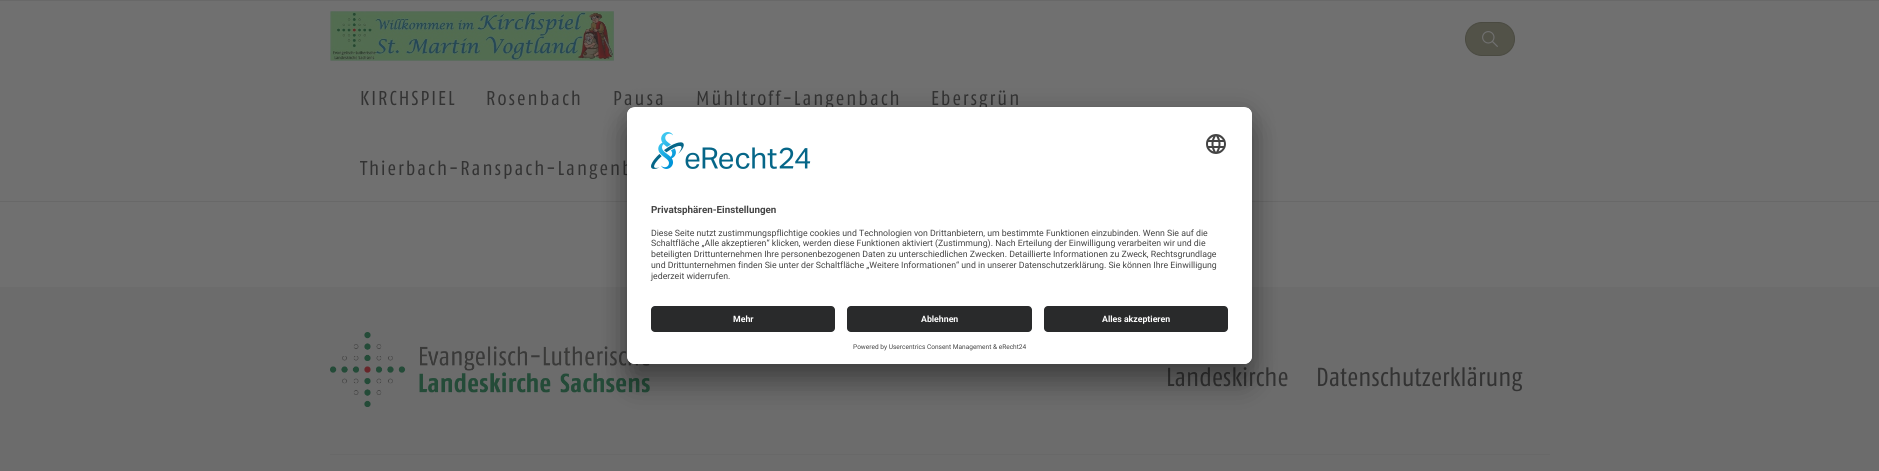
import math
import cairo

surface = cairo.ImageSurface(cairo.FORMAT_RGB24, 1879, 471)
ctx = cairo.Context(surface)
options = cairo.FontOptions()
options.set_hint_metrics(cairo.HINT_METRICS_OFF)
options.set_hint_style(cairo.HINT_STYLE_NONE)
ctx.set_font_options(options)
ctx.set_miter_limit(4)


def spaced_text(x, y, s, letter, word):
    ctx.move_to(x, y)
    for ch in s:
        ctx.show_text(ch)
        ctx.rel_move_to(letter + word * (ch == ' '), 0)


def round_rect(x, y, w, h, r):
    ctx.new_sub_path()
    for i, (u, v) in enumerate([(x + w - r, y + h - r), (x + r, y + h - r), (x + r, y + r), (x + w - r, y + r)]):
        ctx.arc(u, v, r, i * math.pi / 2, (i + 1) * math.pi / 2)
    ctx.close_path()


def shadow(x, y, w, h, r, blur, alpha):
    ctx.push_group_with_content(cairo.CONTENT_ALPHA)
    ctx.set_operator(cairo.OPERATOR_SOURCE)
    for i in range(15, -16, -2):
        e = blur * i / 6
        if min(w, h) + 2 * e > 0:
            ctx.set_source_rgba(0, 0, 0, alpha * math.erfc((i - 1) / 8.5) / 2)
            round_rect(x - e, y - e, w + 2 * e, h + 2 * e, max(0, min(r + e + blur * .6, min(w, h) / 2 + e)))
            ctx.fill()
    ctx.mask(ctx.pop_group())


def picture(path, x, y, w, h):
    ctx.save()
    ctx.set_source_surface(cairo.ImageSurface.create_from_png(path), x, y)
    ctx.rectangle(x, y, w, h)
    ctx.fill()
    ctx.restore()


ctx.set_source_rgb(0.424, 0.424, 0.424)
ctx.paint()
ctx.set_source_rgb(0.439, 0.439, 0.439)
ctx.rectangle(0, 1, 1879, 200)
ctx.fill()
ctx.set_source_rgb(0.408, 0.408, 0.408)
ctx.rectangle(0, 201, 1879, 1)
ctx.fill()
ctx.rectangle(0, 0, 1879, 1)
ctx.fill()
ctx.set_source_rgb(0.322, 0.322, 0.282)
round_rect(1465.5, 22.5, 49, 33, 16.5)
ctx.fill_preserve()
ctx.set_source_rgb(0.29, 0.29, 0.255)
ctx.set_line_width(1)
ctx.stroke()
picture("img1.png", 1482, 31, 16, 16)
picture("img2.png", 330, 11, 284, 50)
ctx.select_font_face("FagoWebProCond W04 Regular")
ctx.set_font_size(20)
ctx.set_source_rgb(0.2, 0.2, 0.2)
spaced_text(360, 105, "KIRCHSPIEL", 2, 0)
spaced_text(486, 105, "Rosenbach", 2, 0)
spaced_text(613, 105, "Pausa", 2, 0)
spaced_text(696, 105, "Mühltroff-Langenbach", 2, 0)
spaced_text(931, 105, "Ebersgrün", 2, 0)
spaced_text(360, 175, "Thierbach-Ranspach-Langenb", 2, 0)
ctx.set_source_rgb(0.439, 0.439, 0.439)
ctx.rectangle(0, 202, 1879, 85)
ctx.fill()
ctx.set_source_rgb(0.408, 0.408, 0.408)
ctx.rectangle(330, 454, 1220, 1)
ctx.fill()
picture("img3.png", 330, 332, 320, 75)
ctx.set_font_size(26)
ctx.set_source_rgb(0.2, 0.2, 0.2)
ctx.move_to(1166, 386)
ctx.show_text("Landeskirche")
ctx.move_to(1316, 386)
ctx.show_text("Datenschutzerklärung")
ctx.set_source_rgb(0, 0, 0)
shadow(627, 127, 625, 257, 8, 14, 0.3)
shadow(627, 112, 625, 257, 8, 13, 0.22)
ctx.set_source_rgb(1, 1, 1)
round_rect(627, 107, 625, 257, 8)
ctx.fill()
ctx.save()
round_rect(627, 107, 625, 257, 8)
ctx.clip()
ctx.new_path()
ctx.move_to(635, 107)
ctx.line_to(1244, 107)
ctx.curve_to(1248.5, 107, 1252, 110.5, 1252, 115)
ctx.line_to(1252, 298)
ctx.line_to(627, 298)
ctx.line_to(627, 115)
ctx.curve_to(627, 110.5, 630.5, 107, 635, 107)
ctx.close_path()
ctx.clip()
ctx.rectangle(627, 108, 625, 190)
ctx.fill()
ctx.restore()
picture("img4.png", 651, 132, 160, 37)
picture("img5.png", 1206, 134, 20, 20)
ctx.select_font_face("Roboto", cairo.FONT_SLANT_NORMAL, cairo.FONT_WEIGHT_BOLD)
ctx.set_font_size(9.8)
ctx.set_source_rgb(0.267, 0.267, 0.267)
ctx.move_to(651, 213)
ctx.show_text("Privatsphären-Einstellungen")
ctx.select_font_face("Roboto")
ctx.set_font_size(8.75)
ctx.move_to(651, 236)
ctx.show_text("Diese Seite nutzt zustimmungspflichtige cookies und Technologien von Drittanbietern, um bestimmte Funktionen einzubinden. Wenn Sie auf die")
ctx.move_to(651, 246)
ctx.show_text("Schaltfläche „Alle akzeptieren“ klicken, werden diese Funktionen aktiviert (Zustimmung). Nach Erteilung der Einwilligung verarbeiten wir und die")
ctx.move_to(651, 257)
ctx.show_text("beteiligten Drittunternehmen Ihre personenbezogenen Daten zu unterschiedlichen Zwecken. Detaillierte Informationen zu Zweck, Rechtsgrundlage")
ctx.move_to(651, 268)
ctx.show_text("und Drittunternehmen finden Sie unter der Schaltfläche „Weitere Informationen“ und in unserer Datenschutzerklärung. Sie können Ihre Einwilligung")
ctx.move_to(651, 279)
ctx.show_text("jederzeit widerrufen.")
ctx.set_source_rgb(1, 1, 1)
ctx.new_path()
ctx.move_to(627, 298)
ctx.line_to(1252, 298)
ctx.line_to(1252, 356)
ctx.curve_to(1252, 360.5, 1248.5, 364, 1244, 364)
ctx.line_to(635, 364)
ctx.curve_to(630.5, 364, 627, 360.5, 627, 356)
ctx.close_path()
ctx.fill()
ctx.set_source_rgb(0.161, 0.165, 0.169)
round_rect(651, 306, 184, 26, 4)
ctx.fill()
ctx.select_font_face("Roboto", cairo.FONT_SLANT_NORMAL, cairo.FONT_WEIGHT_BOLD)
ctx.set_source_rgb(1, 1, 1)
ctx.move_to(733, 322)
ctx.show_text("Mehr")
ctx.set_source_rgb(0.161, 0.165, 0.169)
round_rect(847, 306, 185, 26, 4)
ctx.fill()
ctx.set_source_rgb(1, 1, 1)
ctx.move_to(921, 322)
ctx.show_text("Ablehnen")
ctx.set_source_rgb(0.161, 0.165, 0.169)
round_rect(1044, 306, 184, 26, 4)
ctx.fill()
ctx.set_source_rgb(1, 1, 1)
ctx.move_to(1102, 322)
ctx.show_text("Alles akzeptieren")
ctx.select_font_face("Roboto")
ctx.set_font_size(6.55)
ctx.set_source_rgb(0.267, 0.267, 0.267)
ctx.move_to(853, 349)
ctx.show_text("Powered by Usercentrics Consent Management & eRecht24")
surface.write_to_png("page.png")
